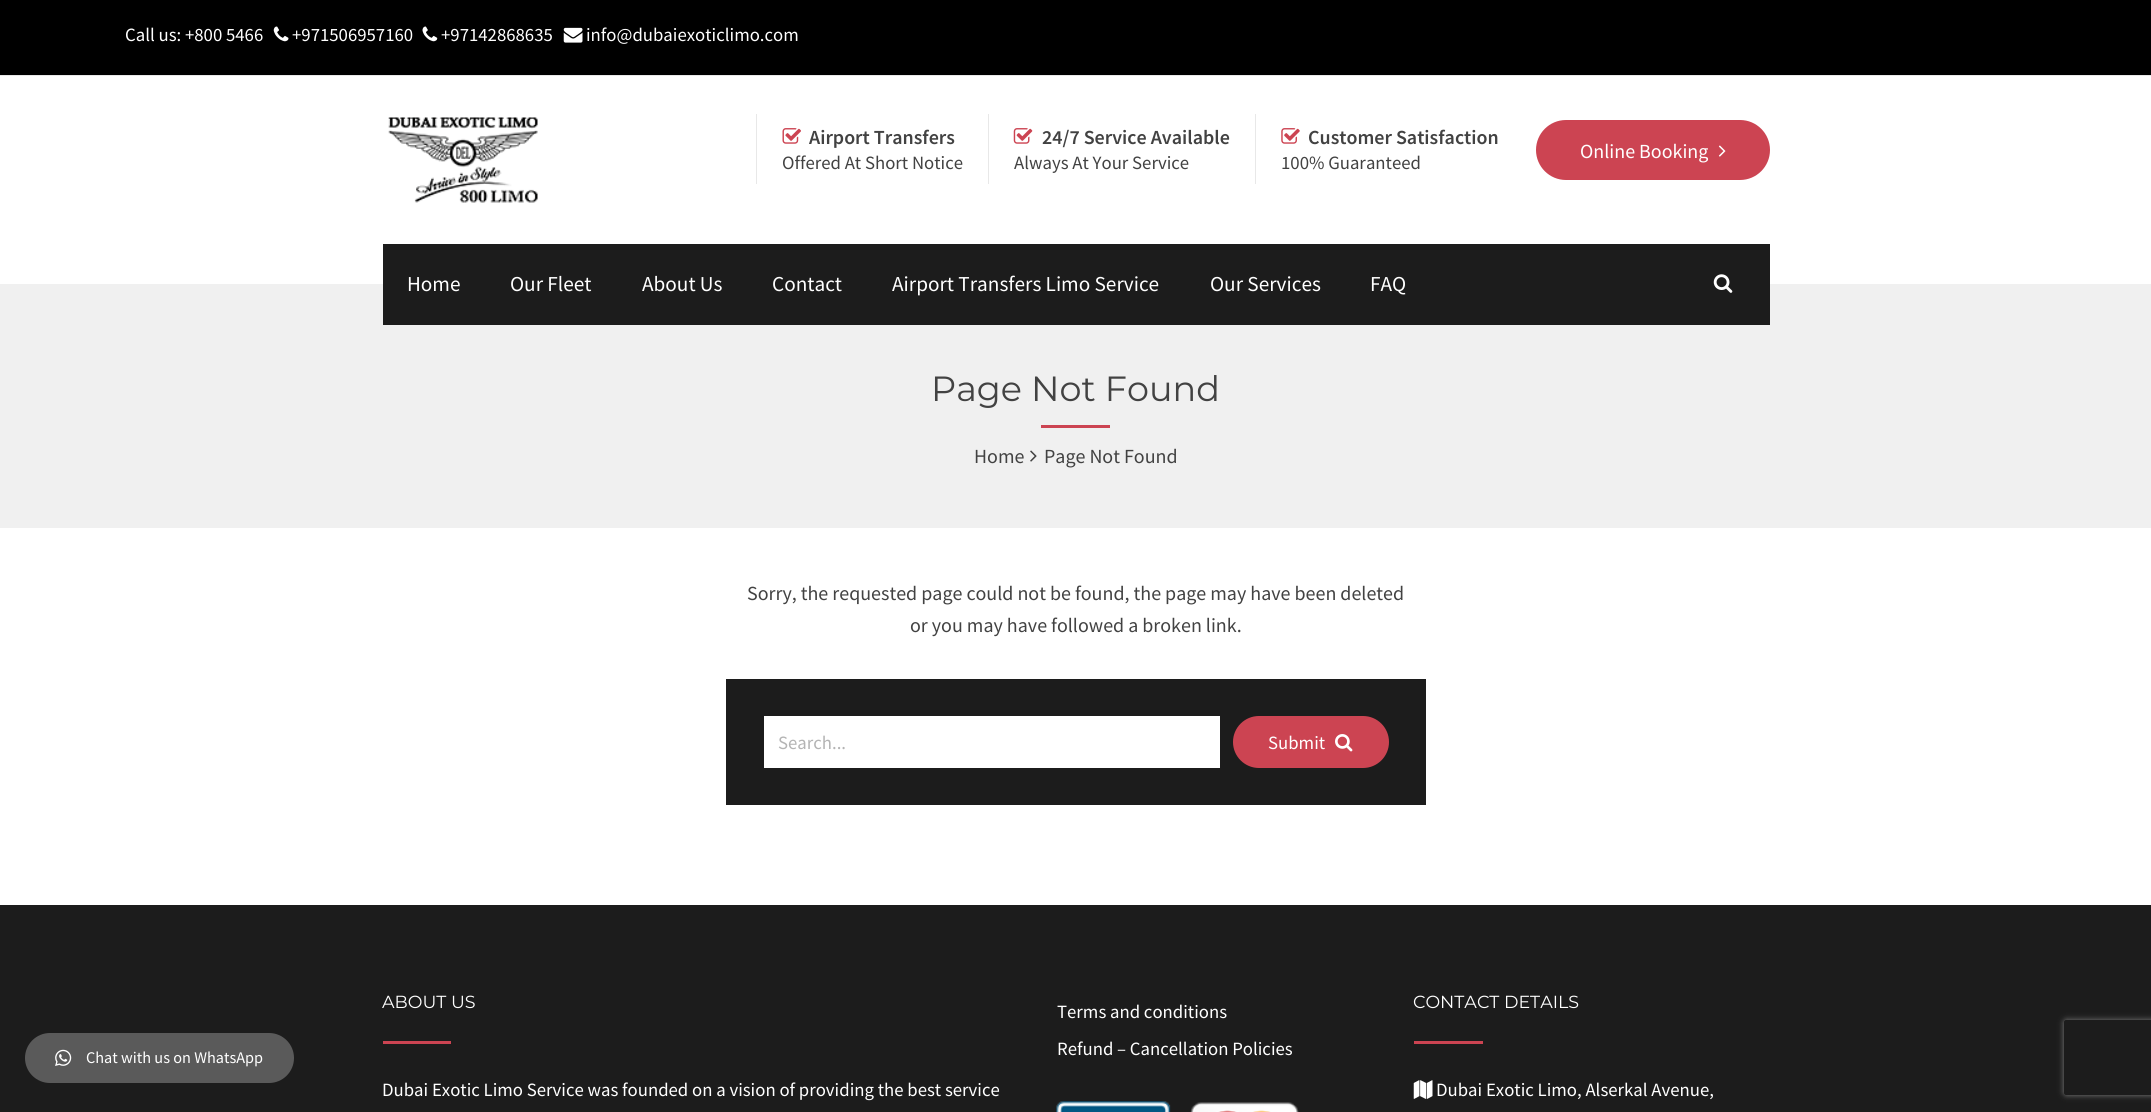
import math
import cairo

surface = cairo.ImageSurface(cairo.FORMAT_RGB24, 2151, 1112)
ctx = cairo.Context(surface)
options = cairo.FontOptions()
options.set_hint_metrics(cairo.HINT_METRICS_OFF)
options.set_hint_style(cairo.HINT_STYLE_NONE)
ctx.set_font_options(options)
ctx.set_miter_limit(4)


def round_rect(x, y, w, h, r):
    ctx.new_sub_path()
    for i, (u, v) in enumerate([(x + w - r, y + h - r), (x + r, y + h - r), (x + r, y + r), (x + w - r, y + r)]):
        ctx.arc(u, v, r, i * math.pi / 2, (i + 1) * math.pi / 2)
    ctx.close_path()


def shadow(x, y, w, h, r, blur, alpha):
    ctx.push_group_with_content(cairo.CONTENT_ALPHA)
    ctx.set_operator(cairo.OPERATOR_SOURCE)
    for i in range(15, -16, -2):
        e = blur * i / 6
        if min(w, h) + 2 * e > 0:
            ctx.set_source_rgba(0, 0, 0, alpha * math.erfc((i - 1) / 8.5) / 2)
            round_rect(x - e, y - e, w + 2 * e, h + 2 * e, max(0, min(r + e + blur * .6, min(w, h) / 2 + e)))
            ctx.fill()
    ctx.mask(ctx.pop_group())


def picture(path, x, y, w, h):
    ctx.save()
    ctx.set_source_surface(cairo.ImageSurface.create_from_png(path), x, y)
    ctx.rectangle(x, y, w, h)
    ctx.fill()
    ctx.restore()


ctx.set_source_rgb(1, 1, 1)
ctx.paint()
ctx.set_source_rgb(0, 0, 0)
ctx.rectangle(0, 0, 2151, 75)
ctx.fill()
ctx.set_source_rgb(0.91, 0.91, 0.91)
ctx.rectangle(0, 75, 2151, 1)
ctx.fill()
ctx.select_font_face("Source Sans Pro")
ctx.set_font_size(18.75)
ctx.set_source_rgb(1, 1, 1)
ctx.move_to(125, 41)
ctx.show_text("Call us: +800 5466")
picture("img1.png", 273, 26, 16, 16)
ctx.move_to(292, 41)
ctx.show_text("+971506957160")
picture("img2.png", 422, 26, 16, 16)
ctx.move_to(441, 41)
ctx.show_text("+97142868635")
picture("img3.png", 563, 27, 20, 16)
ctx.move_to(586, 41)
ctx.show_text("info@dubaiexoticlimo.com")
picture("img4.png", 388, 117, 150, 86)
ctx.set_source_rgb(0.91, 0.91, 0.91)
ctx.rectangle(756, 114, 1, 70)
ctx.fill()
picture("img5.png", 782, 128, 19, 16)
ctx.select_font_face("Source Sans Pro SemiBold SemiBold")
ctx.set_font_size(20)
ctx.set_source_rgb(0.259, 0.259, 0.259)
ctx.move_to(809, 144)
ctx.show_text("Airport Transfers")
ctx.select_font_face("Source Sans Pro")
ctx.set_font_size(18.75)
ctx.move_to(782, 169)
ctx.show_text("Offered At Short Notice")
ctx.set_source_rgb(0.91, 0.91, 0.91)
ctx.rectangle(988, 114, 1, 70)
ctx.fill()
picture("img6.png", 1013, 128, 20, 16)
ctx.select_font_face("Source Sans Pro SemiBold SemiBold")
ctx.set_font_size(20)
ctx.set_source_rgb(0.259, 0.259, 0.259)
ctx.move_to(1042, 144)
ctx.show_text("24/7 Service Available")
ctx.select_font_face("Source Sans Pro")
ctx.set_font_size(18.75)
ctx.move_to(1014, 169)
ctx.show_text("Always At Your Service")
ctx.set_source_rgb(0.91, 0.91, 0.91)
ctx.rectangle(1255, 114, 1, 70)
ctx.fill()
picture("img7.png", 1281, 128, 19, 16)
ctx.select_font_face("Source Sans Pro SemiBold SemiBold")
ctx.set_font_size(20)
ctx.set_source_rgb(0.259, 0.259, 0.259)
ctx.move_to(1308, 144)
ctx.show_text("Customer Satisfaction")
ctx.select_font_face("Source Sans Pro")
ctx.set_font_size(18.75)
ctx.move_to(1281, 169)
ctx.show_text("100% Guaranteed")
ctx.set_source_rgb(0.8, 0.267, 0.322)
round_rect(1536, 120, 234, 60, 30)
ctx.fill()
ctx.set_font_size(20)
ctx.set_source_rgb(1, 1, 1)
ctx.move_to(1580, 158)
ctx.show_text("Online Booking")
picture("img8.png", 1718, 145, 8, 12)
ctx.set_source_rgb(0.941, 0.941, 0.941)
ctx.rectangle(0, 284, 2151, 244)
ctx.fill()
ctx.set_source_rgb(0.11, 0.11, 0.11)
ctx.rectangle(383, 244, 1387, 81)
ctx.fill()
ctx.set_font_size(21.25)
ctx.set_source_rgb(1, 1, 1)
ctx.move_to(407, 291)
ctx.show_text("Home")
ctx.move_to(510, 291)
ctx.show_text("Our Fleet")
ctx.move_to(642, 291)
ctx.show_text("About Us")
ctx.move_to(772, 291)
ctx.show_text("Contact")
ctx.move_to(892, 291)
ctx.show_text("Airport Transfers Limo Service")
ctx.move_to(1210, 291)
ctx.show_text("Our Services")
ctx.move_to(1370, 291)
ctx.show_text("FAQ")
picture("img9.png", 1713, 274, 20, 19)
ctx.select_font_face("Montserrat")
ctx.set_font_size(35)
ctx.set_source_rgb(0.259, 0.259, 0.259)
ctx.move_to(931, 401)
ctx.show_text("Page Not Found")
ctx.set_source_rgb(0.8, 0.267, 0.322)
ctx.rectangle(1041, 425, 69, 3)
ctx.fill()
ctx.select_font_face("Source Sans Pro")
ctx.set_font_size(20)
ctx.set_source_rgb(0.259, 0.259, 0.259)
ctx.move_to(974, 463)
ctx.show_text("Home")
picture("img10.png", 1030, 450, 7, 12)
ctx.move_to(1044, 463)
ctx.show_text("Page Not Found")
ctx.move_to(747, 600)
ctx.show_text("Sorry, the requested page could not be found, the page may have been deleted")
ctx.move_to(910, 632)
ctx.show_text("or you may have followed a broken link.")
ctx.set_source_rgb(0.11, 0.11, 0.11)
ctx.rectangle(726, 679, 700, 126)
ctx.fill()
ctx.set_source_rgb(1, 1, 1)
ctx.rectangle(764, 716, 456, 52)
ctx.fill()
ctx.set_font_size(18.75)
ctx.set_source_rgb(0.706, 0.706, 0.706)
ctx.move_to(778, 749)
ctx.show_text("Search...")
ctx.set_source_rgb(0.8, 0.267, 0.322)
round_rect(1233, 716, 156, 52, 26)
ctx.fill()
ctx.set_source_rgb(1, 1, 1)
ctx.move_to(1268, 749)
ctx.show_text("Submit")
picture("img11.png", 1335, 734, 18, 18)
ctx.set_source_rgb(0.11, 0.11, 0.11)
ctx.rectangle(0, 905, 2151, 207)
ctx.fill()
ctx.select_font_face("Montserrat")
ctx.set_font_size(17.5)
ctx.set_source_rgb(1, 1, 1)
ctx.move_to(382, 1008)
ctx.show_text("ABOUT US")
ctx.set_source_rgb(0.8, 0.267, 0.322)
ctx.rectangle(383, 1041, 68, 3)
ctx.fill()
ctx.select_font_face("Source Sans Pro")
ctx.set_font_size(18.75)
ctx.set_source_rgb(1, 1, 1)
ctx.move_to(382, 1096)
ctx.show_text("Dubai Exotic Limo Service was founded on a vision of providing the best service")
ctx.move_to(1057, 1018)
ctx.show_text("Terms and conditions")
ctx.move_to(1057, 1055)
ctx.show_text("Refund – Cancellation Policies")
picture("img12.png", 1056, 1101, 115, 11)
picture("img13.png", 1190, 1102, 109, 10)
ctx.select_font_face("Montserrat")
ctx.set_font_size(17.5)
ctx.move_to(1413, 1008)
ctx.show_text("CONTACT DETAILS")
ctx.set_source_rgb(0.8, 0.267, 0.322)
ctx.rectangle(1414, 1041, 69, 3)
ctx.fill()
picture("img14.png", 1413, 1080, 20, 19)
ctx.select_font_face("Source Sans Pro")
ctx.set_font_size(18.75)
ctx.set_source_rgb(1, 1, 1)
ctx.move_to(1436, 1096)
ctx.show_text("Dubai Exotic Limo, Alserkal Avenue,")
ctx.save()
ctx.set_fill_rule(cairo.FILL_RULE_EVEN_ODD)
ctx.new_path()
ctx.move_to(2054, 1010)
ctx.line_to(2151, 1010)
ctx.line_to(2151, 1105)
ctx.line_to(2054, 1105)
ctx.close_path()
ctx.move_to(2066.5, 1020)
ctx.line_to(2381.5, 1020)
ctx.curve_to(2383, 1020, 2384, 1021, 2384, 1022.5)
ctx.line_to(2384, 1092.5)
ctx.curve_to(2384, 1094, 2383, 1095, 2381.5, 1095)
ctx.line_to(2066.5, 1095)
ctx.curve_to(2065, 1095, 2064, 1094, 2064, 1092.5)
ctx.line_to(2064, 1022.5)
ctx.curve_to(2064, 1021, 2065, 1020, 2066.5, 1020)
ctx.close_path()
ctx.clip()
ctx.set_source_rgb(0.502, 0.502, 0.502)
shadow(2064, 1020, 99, 75, 2.5, 3, 1)
ctx.restore()
ctx.set_source_rgb(0.353, 0.353, 0.353)
round_rect(25, 1033, 269, 50, 25)
ctx.fill()
picture("img15.png", 55, 1049, 17, 17)
ctx.set_font_size(16.25)
ctx.set_source_rgb(1, 1, 1)
ctx.move_to(86, 1063)
ctx.show_text("Chat with us on WhatsApp")
surface.write_to_png("page.png")
